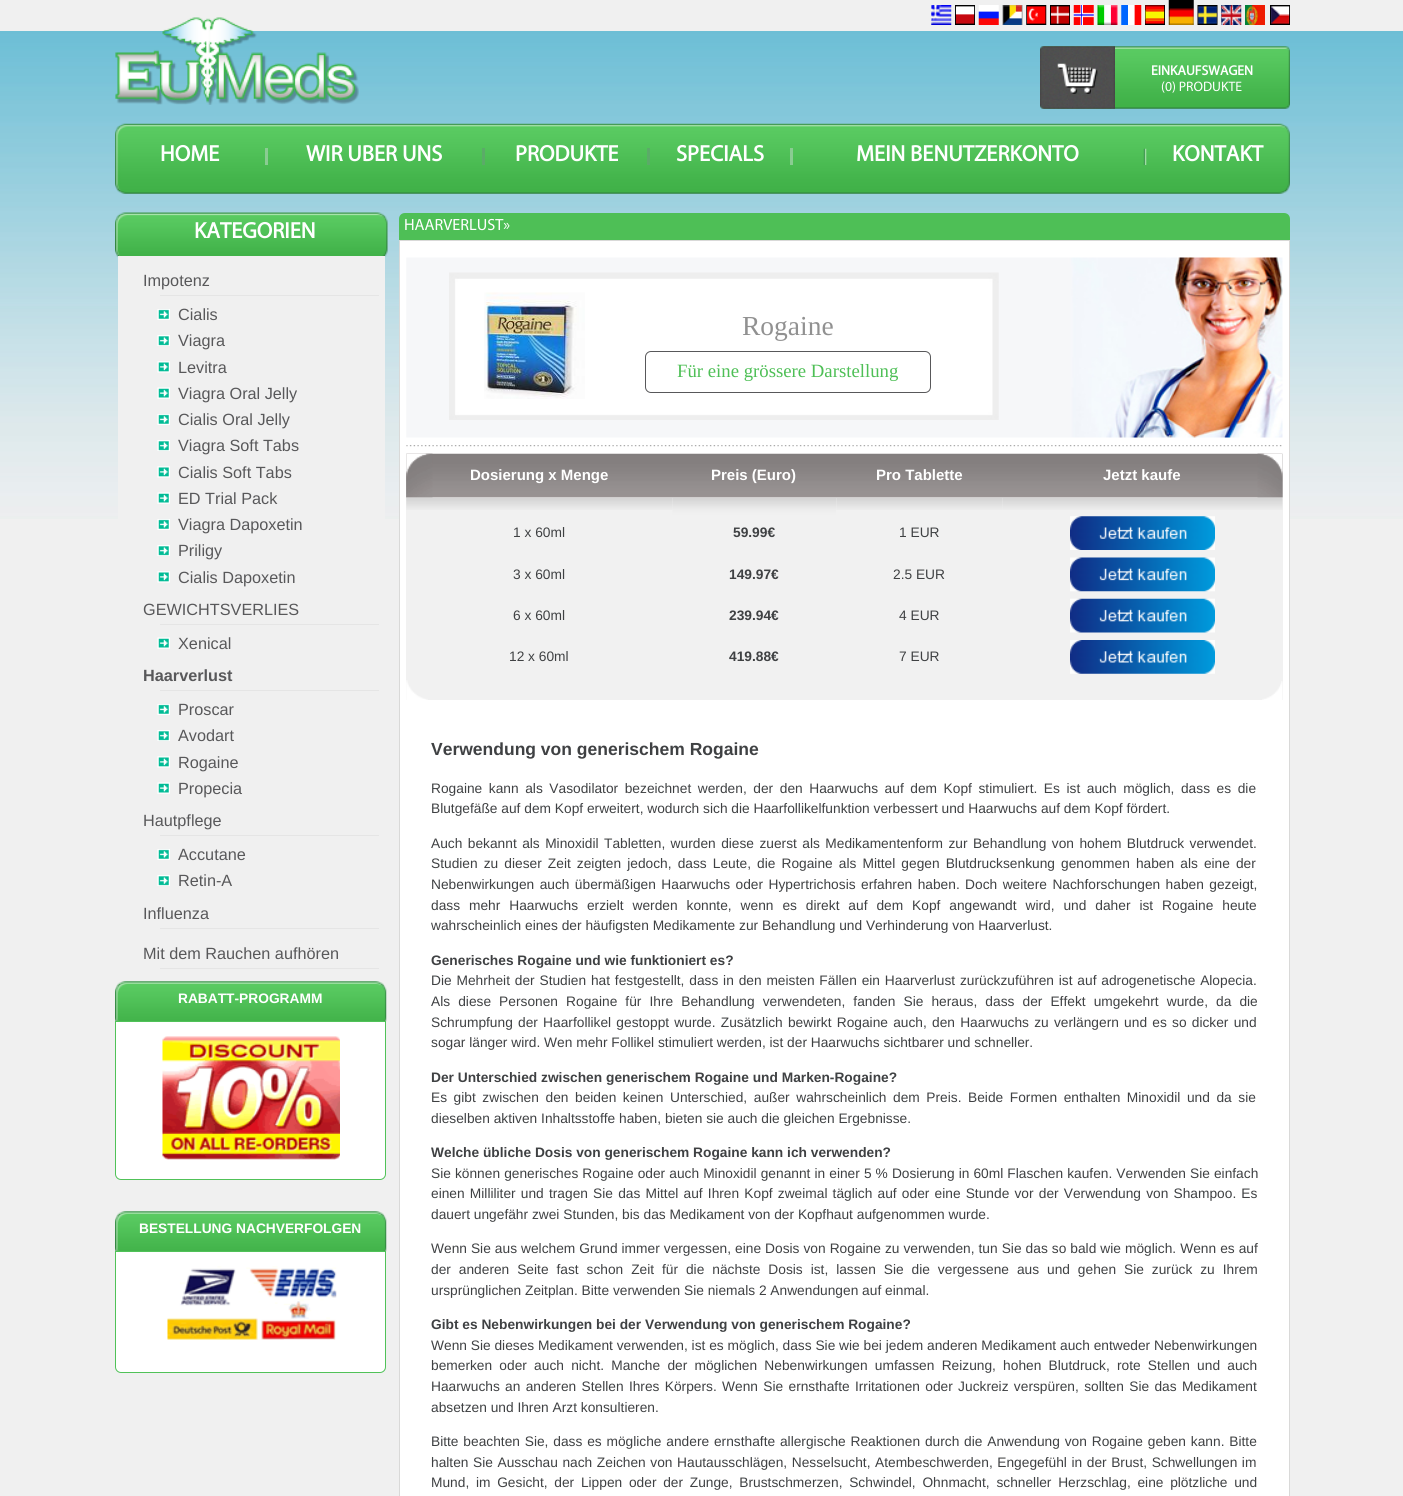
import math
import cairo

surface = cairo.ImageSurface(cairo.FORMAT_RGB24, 1403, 1496)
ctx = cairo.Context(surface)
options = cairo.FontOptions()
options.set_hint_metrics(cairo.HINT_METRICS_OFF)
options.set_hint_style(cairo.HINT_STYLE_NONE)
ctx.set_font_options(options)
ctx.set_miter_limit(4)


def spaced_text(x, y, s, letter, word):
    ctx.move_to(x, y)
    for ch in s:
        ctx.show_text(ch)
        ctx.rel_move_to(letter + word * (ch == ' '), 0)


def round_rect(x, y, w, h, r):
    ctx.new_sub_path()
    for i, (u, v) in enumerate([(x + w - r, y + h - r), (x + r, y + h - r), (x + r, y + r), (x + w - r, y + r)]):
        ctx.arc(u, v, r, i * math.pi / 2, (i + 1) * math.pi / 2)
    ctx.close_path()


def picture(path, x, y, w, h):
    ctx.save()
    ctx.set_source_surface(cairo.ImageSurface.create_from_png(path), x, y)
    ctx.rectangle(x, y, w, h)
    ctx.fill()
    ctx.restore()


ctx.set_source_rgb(0.941, 0.941, 0.941)
ctx.paint()
picture("img1.png", 0, 31, 1403, 488)
picture("img2.png", 931, 5, 21, 20)
picture("img3.png", 955, 5, 20, 20)
picture("img4.png", 978, 5, 21, 20)
picture("img5.png", 1002, 5, 21, 20)
picture("img6.png", 1026, 5, 21, 20)
picture("img7.png", 1050, 5, 20, 20)
picture("img8.png", 1073, 5, 21, 20)
picture("img9.png", 1097, 5, 21, 20)
picture("img10.png", 1121, 5, 21, 20)
picture("img11.png", 1145, 5, 20, 20)
picture("img12.png", 1168, 0, 26, 25)
picture("img13.png", 1197, 5, 21, 20)
picture("img14.png", 1221, 5, 21, 20)
picture("img15.png", 1245, 5, 20, 20)
picture("img16.png", 1270, 5, 20, 20)
picture("img17.png", 115, 17, 244, 88)
picture("img18.png", 1040, 46, 250, 63)
picture("img19.png", 1040, 46, 75, 63)
ctx.select_font_face("Myriad", cairo.FONT_SLANT_NORMAL, cairo.FONT_WEIGHT_BOLD)
ctx.set_font_size(13.75)
ctx.set_source_rgb(1, 1, 1)
ctx.move_to(1151, 75)
ctx.show_text("EINKAUFSWAGEN")
ctx.select_font_face("Myriad")
ctx.move_to(1161, 91)
ctx.show_text("(0) PRODUKTE")
picture("img20.png", 115, 123, 1175, 71)
ctx.select_font_face("Myriad", cairo.FONT_SLANT_NORMAL, cairo.FONT_WEIGHT_BOLD)
ctx.set_font_size(22.5)
ctx.move_to(160, 161)
ctx.show_text("HOME")
ctx.set_source_rgb(0.541, 0.8, 0.573)
ctx.rectangle(265, 148, 3, 17)
ctx.fill()
ctx.set_source_rgb(1, 1, 1)
ctx.move_to(306, 161)
ctx.show_text("WIR UBER UNS")
ctx.set_source_rgb(0.357, 0.671, 0.408)
ctx.rectangle(482, 148, 3, 17)
ctx.fill()
ctx.set_source_rgb(1, 1, 1)
ctx.move_to(515, 161)
ctx.show_text("PRODUKTE")
ctx.set_source_rgb(0.357, 0.671, 0.408)
ctx.rectangle(647, 148, 3, 17)
ctx.fill()
ctx.set_source_rgb(1, 1, 1)
ctx.move_to(676, 161)
ctx.show_text("SPECIALS")
ctx.set_source_rgb(0.541, 0.8, 0.573)
ctx.rectangle(790, 148, 3, 17)
ctx.fill()
ctx.set_source_rgb(1, 1, 1)
ctx.move_to(856, 161)
ctx.show_text("MEIN BENUTZERKONTO")
picture("img21.png", 1143, 148, 4, 17)
ctx.move_to(1172, 161)
ctx.show_text("KONTAKT")
picture("img22.png", 115, 212, 273, 45)
ctx.move_to(194, 238)
ctx.show_text("KATEGORIEN")
ctx.set_source_rgb(0.941, 0.941, 0.941)
ctx.rectangle(118, 256, 267, 263)
ctx.fill()
ctx.select_font_face("Liberation Sans")
ctx.set_font_size(16.25)
ctx.set_source_rgb(0.345, 0.345, 0.353)
ctx.move_to(143, 286)
ctx.show_text("Impotenz")
ctx.set_source_rgb(0.898, 0.898, 0.898)
ctx.rectangle(160, 295, 219, 1)
ctx.fill()
picture("img23.png", 157, 309, 13, 11)
ctx.set_source_rgb(0.345, 0.345, 0.353)
ctx.move_to(178, 320)
ctx.show_text("Cialis")
picture("img24.png", 157, 335, 13, 11)
ctx.move_to(178, 346)
ctx.show_text("Viagra")
picture("img25.png", 157, 361, 13, 12)
ctx.move_to(178, 373)
ctx.show_text("Levitra")
picture("img26.png", 157, 387, 13, 12)
ctx.move_to(178, 399)
ctx.show_text("Viagra Oral Jelly")
picture("img23.png", 157, 414, 13, 11)
ctx.move_to(178, 425)
ctx.show_text("Cialis Oral Jelly")
picture("img24.png", 157, 440, 13, 11)
ctx.move_to(178, 451)
ctx.show_text("Viagra Soft Tabs")
picture("img25.png", 157, 466, 13, 12)
ctx.move_to(178, 478)
ctx.show_text("Cialis Soft Tabs")
picture("img26.png", 157, 492, 13, 12)
ctx.move_to(178, 504)
ctx.show_text("ED Trial Pack")
picture("img23.png", 157, 519, 13, 11)
ctx.move_to(178, 530)
ctx.show_text("Viagra Dapoxetin")
picture("img24.png", 157, 545, 13, 11)
ctx.move_to(178, 556)
ctx.show_text("Priligy")
picture("img25.png", 157, 571, 13, 12)
ctx.move_to(178, 583)
ctx.show_text("Cialis Dapoxetin")
ctx.move_to(143, 615)
ctx.show_text("GEWICHTSVERLIES")
ctx.set_source_rgb(0.898, 0.898, 0.898)
ctx.rectangle(160, 624, 219, 1)
ctx.fill()
picture("img26.png", 157, 637, 13, 12)
ctx.set_source_rgb(0.345, 0.345, 0.353)
ctx.move_to(178, 649)
ctx.show_text("Xenical")
ctx.select_font_face("Liberation Sans", cairo.FONT_SLANT_NORMAL, cairo.FONT_WEIGHT_BOLD)
ctx.move_to(143, 681)
ctx.show_text("Haarverlust")
ctx.set_source_rgb(0.898, 0.898, 0.898)
ctx.rectangle(160, 690, 219, 1)
ctx.fill()
picture("img23.png", 157, 704, 13, 11)
ctx.select_font_face("Liberation Sans")
ctx.set_source_rgb(0.345, 0.345, 0.353)
ctx.move_to(178, 715)
ctx.show_text("Proscar")
picture("img24.png", 157, 730, 13, 11)
ctx.move_to(178, 741)
ctx.show_text("Avodart")
picture("img25.png", 157, 756, 13, 12)
ctx.move_to(178, 768)
ctx.show_text("Rogaine")
picture("img26.png", 157, 782, 13, 12)
ctx.move_to(178, 794)
ctx.show_text("Propecia")
ctx.move_to(143, 826)
ctx.show_text("Hautpflege")
ctx.set_source_rgb(0.898, 0.898, 0.898)
ctx.rectangle(160, 835, 219, 1)
ctx.fill()
picture("img23.png", 157, 849, 13, 11)
ctx.set_source_rgb(0.345, 0.345, 0.353)
ctx.move_to(178, 860)
ctx.show_text("Accutane")
picture("img24.png", 157, 875, 13, 11)
ctx.move_to(178, 886)
ctx.show_text("Retin-A")
ctx.move_to(143, 919)
ctx.show_text("Influenza")
ctx.set_source_rgb(0.898, 0.898, 0.898)
ctx.rectangle(160, 928, 219, 1)
ctx.fill()
ctx.set_source_rgb(0.345, 0.345, 0.353)
ctx.move_to(143, 959)
ctx.show_text("Mit dem Rauchen aufhören")
ctx.set_source_rgb(0.898, 0.898, 0.898)
ctx.rectangle(160, 968, 219, 1)
ctx.fill()
picture("img27.png", 115, 981, 272, 41)
ctx.select_font_face("Liberation Sans", cairo.FONT_SLANT_NORMAL, cairo.FONT_WEIGHT_BOLD)
ctx.set_font_size(13.75)
ctx.set_source_rgb(1, 1, 1)
ctx.move_to(178, 1003)
ctx.show_text("RABATT-PROGRAMM")
ctx.new_path()
ctx.move_to(115.5, 1021.5)
ctx.line_to(385.5, 1021.5)
ctx.line_to(385.5, 1174)
ctx.curve_to(385.5, 1177, 383, 1179.5, 380, 1179.5)
ctx.line_to(121, 1179.5)
ctx.curve_to(118, 1179.5, 115.5, 1177, 115.5, 1174)
ctx.close_path()
ctx.fill_preserve()
ctx.set_source_rgb(0.314, 0.761, 0.345)
ctx.set_line_width(1)
ctx.stroke()
picture("img28.png", 162, 1036, 178, 124)
picture("img27.png", 115, 1211, 272, 41)
ctx.set_source_rgb(1, 1, 1)
ctx.move_to(139, 1233)
ctx.show_text("BESTELLUNG NACHVERFOLGEN")
ctx.new_path()
ctx.move_to(115.5, 1251.5)
ctx.line_to(385.5, 1251.5)
ctx.line_to(385.5, 1367)
ctx.curve_to(385.5, 1370, 383, 1372.5, 380, 1372.5)
ctx.line_to(121, 1372.5)
ctx.curve_to(118, 1372.5, 115.5, 1370, 115.5, 1367)
ctx.close_path()
ctx.fill_preserve()
ctx.set_source_rgb(0.314, 0.761, 0.345)
ctx.stroke()
picture("img29.png", 167, 1266, 170, 74)
ctx.set_source_rgb(0.306, 0.749, 0.337)
ctx.new_path()
ctx.move_to(405, 213)
ctx.line_to(1284, 213)
ctx.curve_to(1287.5, 213, 1290, 215.5, 1290, 219)
ctx.line_to(1290, 240)
ctx.line_to(399, 240)
ctx.line_to(399, 219)
ctx.curve_to(399, 215.5, 401.5, 213, 405, 213)
ctx.close_path()
ctx.fill()
ctx.select_font_face("Myriad")
ctx.set_font_size(16.25)
ctx.set_source_rgb(1, 1, 1)
ctx.move_to(404, 230)
ctx.show_text("HAARVERLUST»")
ctx.rectangle(399.5, 240.5, 890, 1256)
ctx.fill_preserve()
ctx.set_source_rgb(0.851, 0.851, 0.847)
ctx.stroke()
picture("img30.png", 406, 257, 877, 181)
picture("img31.png", 449, 272, 550, 148)
picture("img32.png", 484, 292, 101, 107)
ctx.select_font_face("Liberation Serif")
ctx.set_font_size(27.5)
ctx.set_source_rgb(0.569, 0.569, 0.569)
ctx.move_to(742, 335)
ctx.show_text("Rogaine")
round_rect(645.5, 351.5, 285, 41, 5.5)
ctx.set_source_rgb(0.345, 0.345, 0.353)
ctx.stroke()
ctx.set_font_size(18.75)
ctx.set_source_rgb(0.306, 0.749, 0.337)
ctx.move_to(677, 377)
ctx.show_text("Für eine grössere Darstellung")
picture("img33.png", 406, 445, 876, 2)
picture("img34.png", 406, 453, 877, 45)
picture("img35.png", 406, 453, 27, 45)
ctx.select_font_face("Liberation Sans", cairo.FONT_SLANT_NORMAL, cairo.FONT_WEIGHT_BOLD)
ctx.set_font_size(15)
ctx.set_source_rgb(1, 1, 1)
ctx.move_to(470, 480)
ctx.show_text("Dosierung x Menge")
ctx.move_to(711, 480)
ctx.show_text("Preis (Euro)")
ctx.move_to(876, 480)
ctx.show_text("Pro Tablette")
picture("img36.png", 1257, 453, 26, 45)
ctx.move_to(1103, 480)
ctx.show_text("Jetzt kaufe")
ctx.set_source_rgb(0.945, 0.945, 0.945)
ctx.rectangle(406, 498, 267, 202)
ctx.fill()
picture("img37.png", 406, 497, 267, 13)
ctx.select_font_face("Liberation Sans")
ctx.set_font_size(13.75)
ctx.set_source_rgb(0.247, 0.255, 0.263)
ctx.move_to(513, 537)
ctx.show_text("1 x 60ml")
ctx.set_source_rgb(0.945, 0.945, 0.945)
ctx.rectangle(673, 515, 163, 185)
ctx.fill()
picture("img38.png", 672, 497, 165, 18)
ctx.select_font_face("Liberation Sans", cairo.FONT_SLANT_NORMAL, cairo.FONT_WEIGHT_BOLD)
ctx.set_source_rgb(0.247, 0.255, 0.263)
ctx.move_to(733, 537)
ctx.show_text("59.99€")
ctx.set_source_rgb(0.945, 0.945, 0.945)
ctx.rectangle(836, 498, 447, 56)
ctx.fill()
picture("img39.png", 836, 497, 167, 13)
ctx.select_font_face("Liberation Sans")
ctx.set_source_rgb(0.247, 0.255, 0.263)
ctx.move_to(899, 537)
ctx.show_text("1 EUR")
picture("img40.png", 1002, 497, 281, 13)
picture("img41.png", 1070, 516, 145, 34)
ctx.move_to(513, 579)
ctx.show_text("3 x 60ml")
ctx.select_font_face("Liberation Sans", cairo.FONT_SLANT_NORMAL, cairo.FONT_WEIGHT_BOLD)
ctx.move_to(729, 579)
ctx.show_text("149.97€")
ctx.set_source_rgb(0.945, 0.945, 0.945)
ctx.rectangle(836, 554, 447, 41)
ctx.fill()
ctx.select_font_face("Liberation Sans")
ctx.set_source_rgb(0.247, 0.255, 0.263)
ctx.move_to(893, 579)
ctx.show_text("2.5 EUR")
picture("img42.png", 1070, 557, 145, 35)
ctx.move_to(513, 620)
ctx.show_text("6 x 60ml")
ctx.select_font_face("Liberation Sans", cairo.FONT_SLANT_NORMAL, cairo.FONT_WEIGHT_BOLD)
ctx.move_to(729, 620)
ctx.show_text("239.94€")
ctx.set_source_rgb(0.945, 0.945, 0.945)
ctx.rectangle(836, 595, 447, 41)
ctx.fill()
ctx.select_font_face("Liberation Sans")
ctx.set_source_rgb(0.247, 0.255, 0.263)
ctx.move_to(899, 620)
ctx.show_text("4 EUR")
picture("img43.png", 1070, 598, 145, 35)
ctx.move_to(509, 661)
ctx.show_text("12 x 60ml")
ctx.select_font_face("Liberation Sans", cairo.FONT_SLANT_NORMAL, cairo.FONT_WEIGHT_BOLD)
ctx.move_to(729, 661)
ctx.show_text("419.88€")
ctx.set_source_rgb(0.945, 0.945, 0.945)
ctx.rectangle(836, 636, 447, 42)
ctx.fill()
ctx.select_font_face("Liberation Sans")
ctx.set_source_rgb(0.247, 0.255, 0.263)
ctx.move_to(899, 661)
ctx.show_text("7 EUR")
picture("img44.png", 1070, 640, 145, 34)
picture("img45.png", 406, 680, 22, 20)
ctx.set_source_rgb(0.945, 0.945, 0.945)
ctx.rectangle(836, 678, 447, 22)
ctx.fill()
picture("img46.png", 1262, 681, 21, 19)
ctx.select_font_face("Liberation Sans", cairo.FONT_SLANT_NORMAL, cairo.FONT_WEIGHT_BOLD)
ctx.set_font_size(17.5)
ctx.set_source_rgb(0.247, 0.255, 0.263)
ctx.move_to(431, 755)
ctx.show_text("Verwendung von generischem Rogaine")
ctx.select_font_face("Liberation Sans")
ctx.set_font_size(13.75)
spaced_text(431, 793, "Rogaine kann als Vasodilator bezeichnet werden, der den Haarwuchs auf dem Kopf stimuliert. Es ist auch möglich, dass es die", 0, 2.75)
ctx.move_to(431, 813)
ctx.show_text("Blutgefäße auf dem Kopf erweitert, wodurch sich die Haarfollikelfunktion verbessert und Haarwuchs auf dem Kopf fördert.")
spaced_text(431, 848, "Auch bekannt als Minoxidil Tabletten, wurden diese zuerst als Medikamentenform zur Behandlung von hohem Blutdruck verwendet.", 0, 1.6)
spaced_text(431, 868, "Studien zu dieser Zeit zeigten jedoch, dass Leute, die Rogaine als Mittel gegen Blutdrucksenkung genommen haben als eine der", 0, 2.25)
spaced_text(431, 889, "Nebenwirkungen auch übermäßigen Haarwuchs oder Hypertrichosis erfahren haben. Doch weitere Nachforschungen haben gezeigt,", 0, 1.6)
spaced_text(431, 910, "dass mehr Haarwuchs erzielt werden konnte, wenn es direkt auf dem Kopf angewandt wird, und daher ist Rogaine heute", 0, 5.1)
ctx.move_to(431, 930)
ctx.show_text("wahrscheinlich eines der häufigsten Medikamente zur Behandlung und Verhinderung von Haarverlust.")
ctx.select_font_face("Liberation Sans", cairo.FONT_SLANT_NORMAL, cairo.FONT_WEIGHT_BOLD)
ctx.move_to(431, 965)
ctx.show_text("Generisches Rogaine und wie funktioniert es?")
ctx.select_font_face("Liberation Sans")
spaced_text(431, 985, "Die Mehrheit der Studien hat festgestellt, dass in den meisten Fällen ein Haarverlust zurückzuführen ist auf adrogenetische Alopecia.", 0, 1)
spaced_text(431, 1006, "Als diese Personen Rogaine für Ihre Behandlung verwendeten, fanden Sie heraus, dass der Effekt umgekehrt wurde, da die", 0, 4.25)
spaced_text(431, 1027, "Schrumpfung der Haarfollikel gestoppt wurde. Zusätzlich bewirkt Rogaine auch, den Haarwuchs zu verlängern und es so dicker und", 0, 1.4)
ctx.move_to(431, 1047)
ctx.show_text("sogar länger wird. Wen mehr Follikel stimuliert werden, ist der Haarwuchs sichtbarer und schneller.")
ctx.select_font_face("Liberation Sans", cairo.FONT_SLANT_NORMAL, cairo.FONT_WEIGHT_BOLD)
ctx.move_to(431, 1082)
ctx.show_text("Der Unterschied zwischen generischem Rogaine und Marken-Rogaine?")
ctx.select_font_face("Liberation Sans")
spaced_text(431, 1102, "Es gibt zwischen den beiden keinen Unterschied, außer wahrscheinlich dem Preis. Beide Formen enthalten Minoxidil und da sie", 0, 2.75)
ctx.move_to(431, 1123)
ctx.show_text("dieselben aktiven Inhaltsstoffe haben, bieten sie auch die gleichen Ergebnisse.")
ctx.select_font_face("Liberation Sans", cairo.FONT_SLANT_NORMAL, cairo.FONT_WEIGHT_BOLD)
ctx.move_to(431, 1157)
ctx.show_text("Welche übliche Dosis von generischem Rogaine kann ich verwenden?")
ctx.select_font_face("Liberation Sans")
spaced_text(431, 1178, "Sie können generisches Rogaine oder auch Minoxidil genannt in einer 5 % Dosierung in 60ml Flaschen kaufen. Verwenden Sie einfach", 0, 0.25)
spaced_text(431, 1198, "einen Milliliter und tragen Sie das Mittel auf Ihren Kopf zweimal täglich auf oder eine Stunde vor der Verwendung von Shampoo. Es", 0, 1.35)
ctx.move_to(431, 1219)
ctx.show_text("dauert ungefähr zwei Stunden, bis das Medikament von der Kopfhaut aufgenommen wurde.")
spaced_text(431, 1253, "Wenn Sie aus welchem Grund immer vergessen, eine Dosis von Rogaine zu verwenden, tun Sie das so bald wie möglich. Wenn es auf", 0, 0.2)
spaced_text(431, 1274, "der anderen Seite fast schon Zeit für die nächste Dosis ist, lassen Sie die vergessene aus und gehen Sie zurück zu Ihrem", 0, 4.1)
ctx.move_to(431, 1295)
ctx.show_text("ursprünglichen Zeitplan. Bitte verwenden Sie niemals 2 Anwendungen auf einmal.")
ctx.select_font_face("Liberation Sans", cairo.FONT_SLANT_NORMAL, cairo.FONT_WEIGHT_BOLD)
ctx.move_to(431, 1329)
ctx.show_text("Gibt es Nebenwirkungen bei der Verwendung von generischem Rogaine?")
ctx.select_font_face("Liberation Sans")
ctx.move_to(431, 1350)
ctx.show_text("Wenn Sie dieses Medikament verwenden, ist es möglich, dass Sie wie bei jedem anderen Medikament auch entweder Nebenwirkungen")
spaced_text(431, 1370, "bemerken oder auch nicht. Manche der möglichen Nebenwirkungen umfassen Reizung, hohen Blutdruck, rote Stellen und auch", 0, 3.4)
spaced_text(431, 1391, "Haarwuchs an anderen Stellen Ihres Körpers. Wenn Sie ernsthafte Irritationen oder Juckreiz verspüren, sollten Sie das Medikament", 0, 1.5)
ctx.move_to(431, 1412)
ctx.show_text("absetzen und Ihren Arzt konsultieren.")
spaced_text(431, 1446, "Bitte beachten Sie, dass es mögliche andere ernsthafte allergische Reaktionen durch die Anwendung von Rogaine geben kann. Bitte", 0, 1)
spaced_text(431, 1467, "halten Sie Ausschau nach Zeichen von Hautausschlägen, Nesselsucht, Atembeschwerden, Engegefühl in der Brust, Schwellungen im", 0, 0.75)
spaced_text(431, 1487, "Mund, im Gesicht, der Lippen oder der Zunge, Brustschmerzen, Schwindel, Ohnmacht, schneller Herzschlag, eine plötzliche und", 0, 2.9)
surface.write_to_png("page.png")
